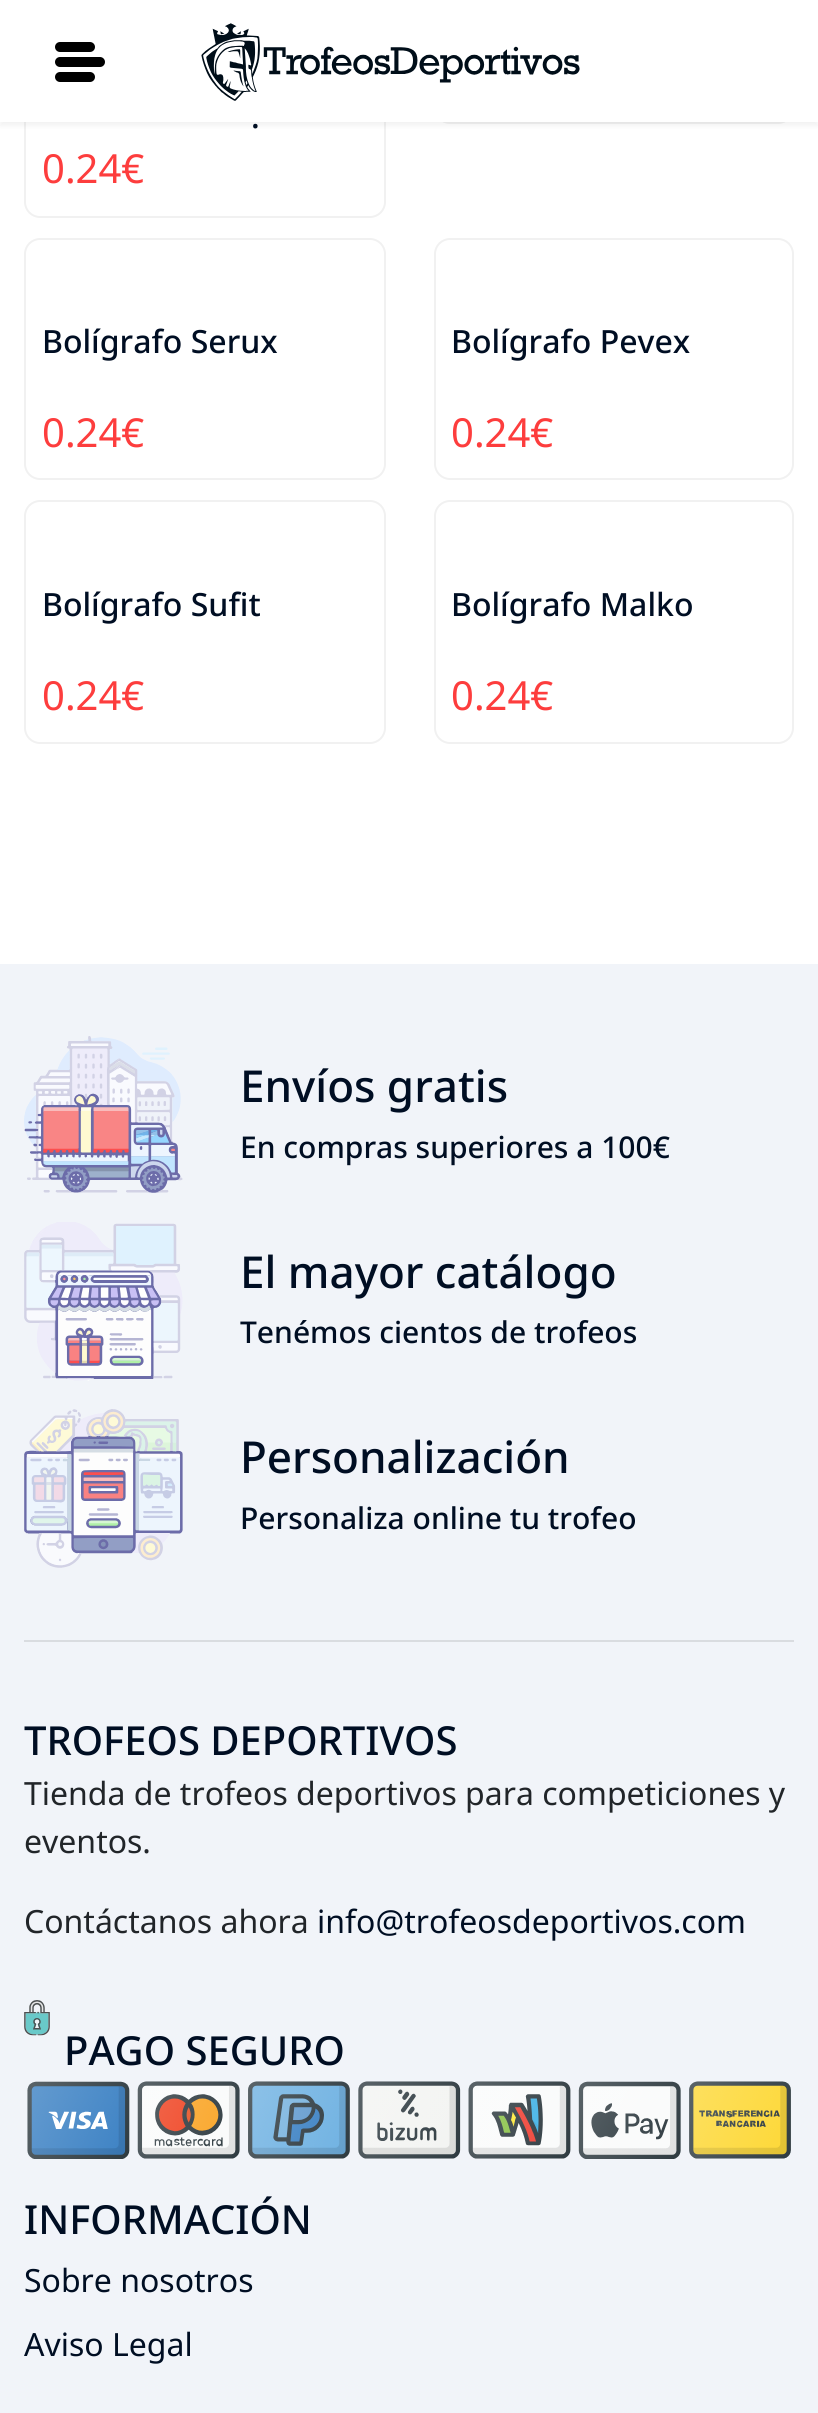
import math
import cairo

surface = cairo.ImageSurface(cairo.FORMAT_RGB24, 818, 2413)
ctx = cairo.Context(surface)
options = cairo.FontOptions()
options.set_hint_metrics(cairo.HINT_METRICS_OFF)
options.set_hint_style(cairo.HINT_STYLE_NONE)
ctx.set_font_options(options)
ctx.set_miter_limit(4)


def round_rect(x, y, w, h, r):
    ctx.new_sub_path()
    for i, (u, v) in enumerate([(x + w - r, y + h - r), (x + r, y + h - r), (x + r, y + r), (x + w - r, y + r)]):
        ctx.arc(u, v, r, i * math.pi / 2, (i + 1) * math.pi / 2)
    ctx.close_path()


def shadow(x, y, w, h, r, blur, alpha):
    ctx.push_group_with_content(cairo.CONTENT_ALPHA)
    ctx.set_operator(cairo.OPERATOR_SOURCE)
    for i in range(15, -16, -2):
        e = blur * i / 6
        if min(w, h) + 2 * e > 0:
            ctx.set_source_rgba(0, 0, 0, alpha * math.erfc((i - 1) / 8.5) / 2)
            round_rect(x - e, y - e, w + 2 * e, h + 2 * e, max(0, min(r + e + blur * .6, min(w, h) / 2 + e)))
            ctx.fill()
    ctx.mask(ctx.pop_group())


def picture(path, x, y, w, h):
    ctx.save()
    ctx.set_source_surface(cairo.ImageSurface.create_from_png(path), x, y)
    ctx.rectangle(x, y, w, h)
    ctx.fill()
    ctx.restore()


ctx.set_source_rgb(1, 1, 1)
ctx.paint()
round_rect(435, -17, 358, 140, 15)
ctx.set_source_rgb(0.945, 0.945, 0.945)
ctx.stroke()
round_rect(25, -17, 360, 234, 15)
ctx.stroke()
ctx.set_source_rgb(0, 0, 0)
shadow(0, 4, 818, 122, 0, 2, 0.05)
ctx.set_source_rgb(1, 1, 1)
ctx.rectangle(0, 0, 818, 122)
ctx.fill()
picture("img1.png", 55, 42, 50, 40)
picture("img2.png", 201, 23, 379, 78)
ctx.select_font_face("Noto Sans Medium")
ctx.set_font_size(32)
ctx.set_source_rgb(0, 0.055, 0.137)
ctx.move_to(251, 128)
ctx.show_text(".")
ctx.select_font_face("Noto Sans")
ctx.set_font_size(40)
ctx.set_source_rgb(0.992, 0.239, 0.239)
ctx.move_to(42, 183)
ctx.show_text("0.24€")
round_rect(25, 239, 360, 240, 15)
ctx.set_source_rgb(0.945, 0.945, 0.945)
ctx.stroke()
ctx.select_font_face("Noto Sans Medium")
ctx.set_font_size(32)
ctx.set_source_rgb(0, 0.055, 0.137)
ctx.move_to(42, 353)
ctx.show_text("Bolígrafo Serux")
ctx.select_font_face("Noto Sans")
ctx.set_font_size(40)
ctx.set_source_rgb(0.992, 0.239, 0.239)
ctx.move_to(42, 447)
ctx.show_text("0.24€")
round_rect(435, 239, 358, 240, 15)
ctx.set_source_rgb(0.945, 0.945, 0.945)
ctx.stroke()
ctx.select_font_face("Noto Sans Medium")
ctx.set_font_size(32)
ctx.set_source_rgb(0, 0.055, 0.137)
ctx.move_to(451, 353)
ctx.show_text("Bolígrafo Pevex")
ctx.select_font_face("Noto Sans")
ctx.set_font_size(40)
ctx.set_source_rgb(0.992, 0.239, 0.239)
ctx.move_to(451, 447)
ctx.show_text("0.24€")
round_rect(25, 501, 360, 242, 15)
ctx.set_source_rgb(0.945, 0.945, 0.945)
ctx.stroke()
ctx.select_font_face("Noto Sans Medium")
ctx.set_font_size(32)
ctx.set_source_rgb(0, 0.055, 0.137)
ctx.move_to(42, 616)
ctx.show_text("Bolígrafo Sufit")
ctx.select_font_face("Noto Sans")
ctx.set_font_size(40)
ctx.set_source_rgb(0.992, 0.239, 0.239)
ctx.move_to(42, 710)
ctx.show_text("0.24€")
round_rect(435, 501, 358, 242, 15)
ctx.set_source_rgb(0.945, 0.945, 0.945)
ctx.stroke()
ctx.select_font_face("Noto Sans Medium")
ctx.set_font_size(32)
ctx.set_source_rgb(0, 0.055, 0.137)
ctx.move_to(451, 616)
ctx.show_text("Bolígrafo Malko")
ctx.select_font_face("Noto Sans")
ctx.set_font_size(40)
ctx.set_source_rgb(0.992, 0.239, 0.239)
ctx.move_to(451, 710)
ctx.show_text("0.24€")
ctx.set_source_rgb(0.945, 0.957, 0.976)
ctx.rectangle(0, 964, 818, 1449)
ctx.fill()
picture("img3.png", 24, 1036, 159, 157)
ctx.select_font_face("Noto Sans Medium")
ctx.set_font_size(44)
ctx.set_source_rgb(0, 0.055, 0.137)
ctx.move_to(240, 1102)
ctx.show_text("Envíos gratis")
ctx.set_font_size(30)
ctx.move_to(240, 1158)
ctx.show_text("En compras superiores a 100€")
picture("img4.png", 24, 1222, 159, 159)
ctx.set_font_size(44)
ctx.move_to(240, 1288)
ctx.show_text("El mayor catálogo")
ctx.set_font_size(30)
ctx.move_to(240, 1343)
ctx.show_text("Tenémos cientos de trofeos")
picture("img5.png", 24, 1409, 159, 159)
ctx.set_font_size(44)
ctx.move_to(240, 1473)
ctx.show_text("Personalización")
ctx.set_font_size(30)
ctx.move_to(240, 1529)
ctx.show_text("Personaliza online tu trofeo")
ctx.set_source_rgb(0.851, 0.863, 0.878)
ctx.rectangle(24, 1640, 770, 2)
ctx.fill()
ctx.set_font_size(40)
ctx.set_source_rgb(0, 0.055, 0.137)
ctx.move_to(24, 1755)
ctx.show_text("TROFEOS DEPORTIVOS")
ctx.select_font_face("Noto Sans")
ctx.set_font_size(32)
ctx.set_source_rgb(0.129, 0.145, 0.161)
ctx.move_to(24, 1805)
ctx.show_text("Tienda de trofeos deportivos para competiciones y")
ctx.move_to(24, 1853)
ctx.show_text("eventos.")
ctx.move_to(24, 1933)
ctx.show_text("Contáctanos ahora")
ctx.set_source_rgb(0, 0.055, 0.137)
ctx.move_to(317, 1933)
ctx.show_text("info@trofeosdeportivos.com")
picture("img6.png", 24, 2000, 26, 36)
ctx.select_font_face("Noto Sans Medium")
ctx.set_font_size(40)
ctx.move_to(64, 2065)
ctx.show_text("PAGO SEGURO")
picture("img7.png", 27, 2081, 764, 78)
ctx.move_to(24, 2234)
ctx.show_text("INFORMACIÓN")
ctx.select_font_face("Noto Sans")
ctx.set_font_size(32)
ctx.move_to(24, 2292)
ctx.show_text("Sobre nosotros")
ctx.move_to(24, 2356)
ctx.show_text("Aviso Legal")
surface.write_to_png("page.png")
